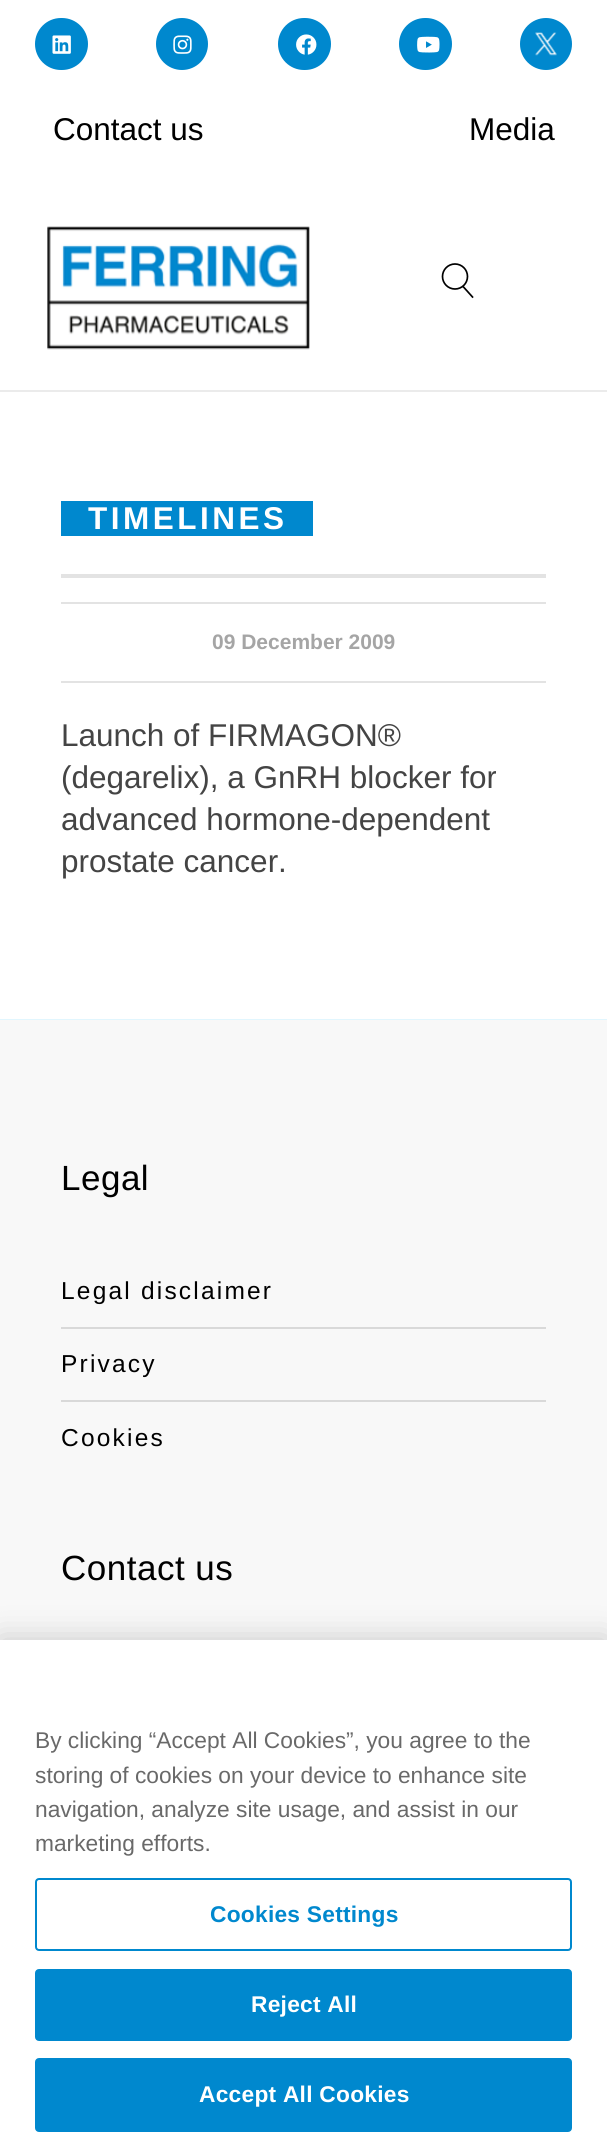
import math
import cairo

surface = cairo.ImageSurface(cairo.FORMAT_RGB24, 607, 2148)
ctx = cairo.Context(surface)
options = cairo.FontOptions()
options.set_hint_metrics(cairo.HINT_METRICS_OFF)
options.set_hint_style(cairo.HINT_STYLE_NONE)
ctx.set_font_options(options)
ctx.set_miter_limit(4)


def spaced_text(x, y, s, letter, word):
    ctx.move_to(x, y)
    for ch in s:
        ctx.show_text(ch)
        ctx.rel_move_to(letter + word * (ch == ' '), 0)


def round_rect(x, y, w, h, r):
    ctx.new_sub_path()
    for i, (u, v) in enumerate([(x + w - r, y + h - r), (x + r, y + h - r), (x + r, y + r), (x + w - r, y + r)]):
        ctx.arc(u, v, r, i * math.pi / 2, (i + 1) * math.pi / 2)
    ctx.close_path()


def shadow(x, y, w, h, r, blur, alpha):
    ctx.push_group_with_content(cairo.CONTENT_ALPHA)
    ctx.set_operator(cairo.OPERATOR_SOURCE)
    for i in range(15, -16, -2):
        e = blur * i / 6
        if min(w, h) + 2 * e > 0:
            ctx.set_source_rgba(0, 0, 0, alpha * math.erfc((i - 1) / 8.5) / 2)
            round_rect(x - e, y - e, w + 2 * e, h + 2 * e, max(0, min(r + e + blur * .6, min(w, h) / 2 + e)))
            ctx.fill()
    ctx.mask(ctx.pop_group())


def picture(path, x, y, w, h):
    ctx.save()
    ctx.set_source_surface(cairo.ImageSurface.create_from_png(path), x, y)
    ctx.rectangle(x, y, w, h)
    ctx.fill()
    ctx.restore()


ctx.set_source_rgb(1, 1, 1)
ctx.paint()
ctx.set_source_rgb(0, 0.533, 0.808)
round_rect(35, 18, 53, 52, 26)
ctx.fill()
picture("img1.png", 52, 35, 19, 19)
ctx.arc(182, 44, 26, 0, 2 * math.pi)
ctx.fill()
picture("img2.png", 173, 35, 19, 19)
round_rect(278, 18, 53, 52, 26)
ctx.fill()
picture("img3.png", 296, 34, 21, 21)
round_rect(399, 18, 53, 52, 26)
ctx.fill()
picture("img4.png", 417, 36, 23, 17)
ctx.arc(546, 44, 26, 0, 2 * math.pi)
ctx.fill()
picture("img5.png", 535, 32, 22, 24)
ctx.select_font_face("Liberation Sans")
ctx.set_font_size(31.5)
ctx.set_source_rgb(0, 0, 0)
ctx.move_to(53, 140)
ctx.show_text("Contact us")
ctx.move_to(469, 140)
ctx.show_text("Media")
ctx.set_source_rgb(0.918, 0.918, 0.918)
ctx.rectangle(0, 390, 607, 2)
ctx.fill()
picture("img6.png", 47, 226, 263, 124)
ctx.arc(455, 276.5, 12.5, 0, 2 * math.pi)
ctx.set_source_rgb(0, 0, 0)
ctx.set_line_width(1.7)
ctx.stroke()
ctx.new_path()
ctx.move_to(463.5, 287)
ctx.line_to(472.5, 297)
ctx.set_line_cap(cairo.LINE_CAP_SQUARE)
ctx.stroke()
ctx.set_source_rgb(0, 0.533, 0.808)
ctx.rectangle(61, 501, 252, 35)
ctx.fill()
ctx.select_font_face("Liberation Sans", cairo.FONT_SLANT_NORMAL, cairo.FONT_WEIGHT_BOLD)
ctx.set_source_rgb(1, 1, 1)
spaced_text(88, 529, "TIMELINES", 3.5, 0)
ctx.set_source_rgb(0.89, 0.89, 0.89)
ctx.rectangle(61, 574, 485, 4)
ctx.fill()
ctx.rectangle(61, 602, 485, 2)
ctx.fill()
ctx.rectangle(61, 681, 485, 2)
ctx.fill()
ctx.set_font_size(21)
ctx.set_source_rgb(0.647, 0.647, 0.647)
ctx.move_to(212, 649)
ctx.show_text("09 December 2009")
ctx.select_font_face("Liberation Sans")
ctx.set_font_size(31.5)
ctx.set_source_rgb(0.267, 0.267, 0.267)
ctx.move_to(61, 746)
ctx.show_text("Launch of FIRMAGON®")
ctx.move_to(61, 788)
ctx.show_text("(degarelix), a GnRH blocker for")
ctx.move_to(61, 830)
ctx.show_text("advanced hormone-dependent")
ctx.move_to(61, 872)
ctx.show_text("prostate cancer.")
ctx.set_source_rgb(0.882, 0.961, 0.996)
ctx.rectangle(0, 1019, 607, 1)
ctx.fill()
ctx.set_source_rgb(0.969, 0.969, 0.969)
ctx.rectangle(0, 1020, 607, 620)
ctx.fill()
ctx.set_font_size(35)
ctx.set_source_rgb(0, 0, 0)
spaced_text(61, 1190, "Legal", 0.5, 0)
ctx.set_font_size(24.5)
spaced_text(61, 1299, "Legal disclaimer", 2.2, 0)
ctx.set_source_rgb(0.851, 0.851, 0.851)
ctx.rectangle(61, 1327, 485, 2)
ctx.fill()
ctx.set_source_rgb(0, 0, 0)
spaced_text(61, 1372, "Privacy", 2.2, 0)
ctx.set_source_rgb(0.851, 0.851, 0.851)
ctx.rectangle(61, 1400, 485, 2)
ctx.fill()
ctx.set_source_rgb(0, 0, 0)
spaced_text(61, 1446, "Cookies", 2.2, 0)
ctx.set_font_size(35)
spaced_text(61, 1580, "Contact us", 0.5, 0)
ctx.set_source_rgb(0, 0, 0)
shadow(0, 1640, 607, 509, 0, 16, 0.2)
ctx.set_source_rgb(1, 1, 1)
ctx.rectangle(0, 1640, 607, 508)
ctx.fill()
ctx.set_font_size(22.75)
ctx.set_source_rgb(0.412, 0.412, 0.412)
ctx.move_to(35, 1748)
ctx.show_text("By clicking “Accept All Cookies”, you agree to the")
ctx.move_to(35, 1783)
ctx.show_text("storing of cookies on your device to enhance site")
ctx.move_to(35, 1817)
ctx.show_text("navigation, analyze site usage, and assist in our")
ctx.move_to(35, 1851)
ctx.show_text("marketing efforts.")
round_rect(36, 1879, 535, 71, 3)
ctx.set_source_rgb(0, 0.533, 0.808)
ctx.set_line_width(2)
ctx.set_line_cap(cairo.LINE_CAP_BUTT)
ctx.stroke()
ctx.select_font_face("Liberation Sans", cairo.FONT_SLANT_NORMAL, cairo.FONT_WEIGHT_BOLD)
spaced_text(210, 1922, "Cookies Settings", 0.25, 0)
round_rect(36, 1970, 535, 70, 3)
ctx.fill_preserve()
ctx.stroke()
ctx.set_source_rgb(1, 1, 1)
spaced_text(251, 2012, "Reject All", 0.25, 0)
ctx.set_source_rgb(0, 0.533, 0.808)
round_rect(36, 2059, 535, 72, 3)
ctx.fill_preserve()
ctx.stroke()
ctx.set_source_rgb(1, 1, 1)
spaced_text(199, 2102, "Accept All Cookies", 0.25, 0)
surface.write_to_png("page.png")
